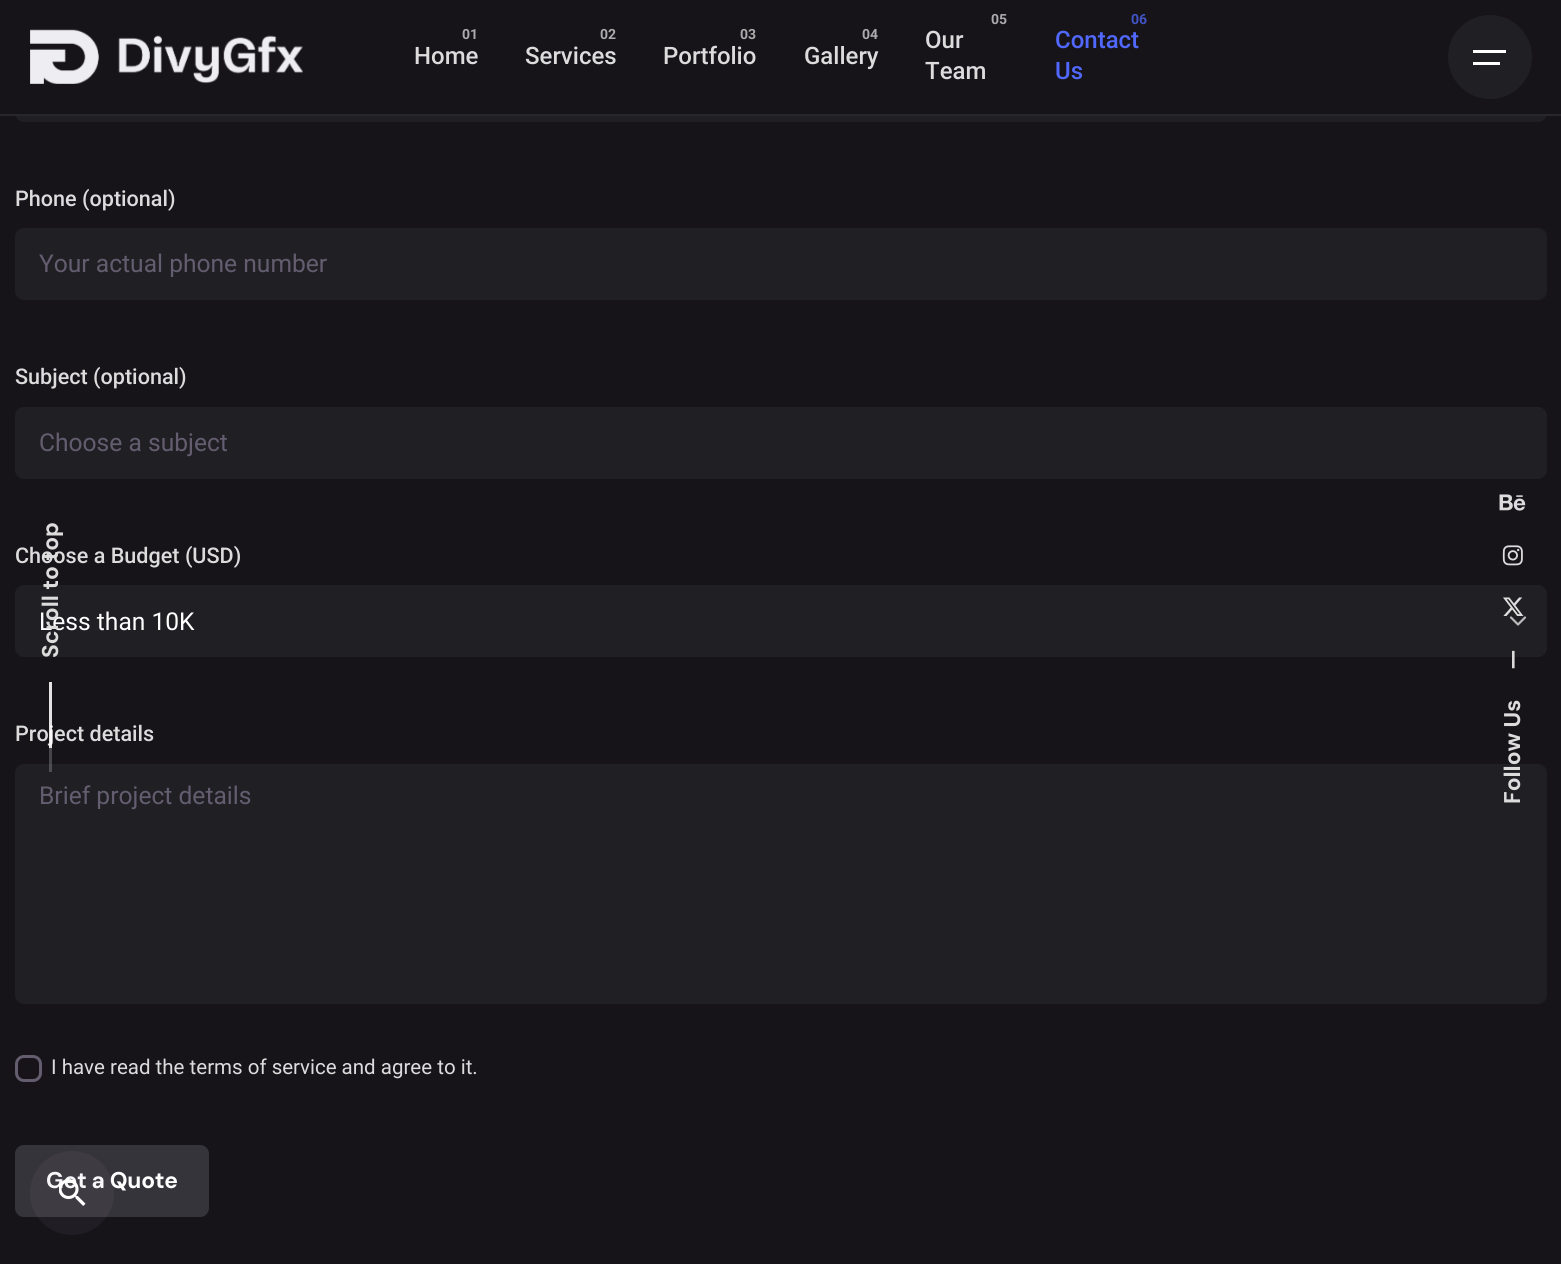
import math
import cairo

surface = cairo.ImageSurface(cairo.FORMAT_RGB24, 1561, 1264)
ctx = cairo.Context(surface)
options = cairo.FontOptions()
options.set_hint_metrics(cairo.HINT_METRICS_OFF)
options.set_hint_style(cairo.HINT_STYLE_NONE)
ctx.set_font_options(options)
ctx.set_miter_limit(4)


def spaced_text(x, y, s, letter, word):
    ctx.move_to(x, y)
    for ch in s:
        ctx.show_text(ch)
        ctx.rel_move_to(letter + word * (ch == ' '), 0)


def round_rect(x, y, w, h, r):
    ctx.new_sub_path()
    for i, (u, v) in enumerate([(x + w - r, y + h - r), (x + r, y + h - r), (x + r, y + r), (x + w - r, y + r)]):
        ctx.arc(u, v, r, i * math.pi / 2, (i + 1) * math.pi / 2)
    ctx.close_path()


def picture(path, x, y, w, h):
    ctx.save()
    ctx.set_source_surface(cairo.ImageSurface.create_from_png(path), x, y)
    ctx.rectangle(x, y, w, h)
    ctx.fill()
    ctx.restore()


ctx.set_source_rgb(0.086, 0.082, 0.098)
ctx.paint()
ctx.set_source_rgb(0.125, 0.122, 0.141)
round_rect(15, 50, 1532, 72, 9)
ctx.fill()
ctx.set_source_rgb(0.086, 0.082, 0.098)
ctx.rectangle(15, 50, 1532, 64)
ctx.fill()
ctx.set_source_rgb(0.161, 0.153, 0.18)
ctx.rectangle(0, 114, 1561, 2)
ctx.fill()
picture("img1.png", 30, 29, 273, 55)
ctx.select_font_face("Roboto", cairo.FONT_SLANT_NORMAL, cairo.FONT_WEIGHT_BOLD)
ctx.set_font_size(14)
ctx.set_source_rgb(0.671, 0.671, 0.675)
ctx.move_to(462, 39)
ctx.show_text("01")
ctx.select_font_face("Roboto Medium")
ctx.set_font_size(24)
ctx.set_source_rgb(0.863, 0.863, 0.867)
ctx.move_to(414, 64)
ctx.show_text("Home")
ctx.select_font_face("Roboto", cairo.FONT_SLANT_NORMAL, cairo.FONT_WEIGHT_BOLD)
ctx.set_font_size(14)
ctx.set_source_rgb(0.671, 0.671, 0.675)
ctx.move_to(600, 39)
ctx.show_text("02")
ctx.select_font_face("Roboto Medium")
ctx.set_font_size(24)
ctx.set_source_rgb(0.863, 0.863, 0.867)
ctx.move_to(525, 64)
ctx.show_text("Services")
ctx.select_font_face("Roboto", cairo.FONT_SLANT_NORMAL, cairo.FONT_WEIGHT_BOLD)
ctx.set_font_size(14)
ctx.set_source_rgb(0.671, 0.671, 0.675)
ctx.move_to(740, 39)
ctx.show_text("03")
ctx.select_font_face("Roboto Medium")
ctx.set_font_size(24)
ctx.set_source_rgb(0.863, 0.863, 0.867)
ctx.move_to(663, 64)
ctx.show_text("Portfolio")
ctx.select_font_face("Roboto", cairo.FONT_SLANT_NORMAL, cairo.FONT_WEIGHT_BOLD)
ctx.set_font_size(14)
ctx.set_source_rgb(0.671, 0.671, 0.675)
ctx.move_to(862, 39)
ctx.show_text("04")
ctx.select_font_face("Roboto Medium")
ctx.set_font_size(24)
ctx.set_source_rgb(0.863, 0.863, 0.867)
ctx.move_to(804, 64)
ctx.show_text("Gallery")
ctx.select_font_face("Roboto", cairo.FONT_SLANT_NORMAL, cairo.FONT_WEIGHT_BOLD)
ctx.set_font_size(14)
ctx.set_source_rgb(0.671, 0.671, 0.675)
ctx.move_to(991, 24)
ctx.show_text("05")
ctx.select_font_face("Roboto Medium")
ctx.set_font_size(24)
ctx.set_source_rgb(0.863, 0.863, 0.867)
ctx.move_to(925, 48)
ctx.show_text("Our")
ctx.move_to(925, 79)
ctx.show_text("Team")
ctx.select_font_face("Roboto", cairo.FONT_SLANT_NORMAL, cairo.FONT_WEIGHT_BOLD)
ctx.set_font_size(14)
ctx.set_source_rgb(0.259, 0.325, 0.776)
ctx.move_to(1131, 24)
ctx.show_text("06")
ctx.select_font_face("Roboto Medium")
ctx.set_font_size(24)
ctx.set_source_rgb(0.318, 0.408, 1)
ctx.move_to(1055, 48)
ctx.show_text("Contact")
ctx.move_to(1055, 79)
ctx.show_text("Us")
ctx.set_source_rgb(0.125, 0.122, 0.141)
ctx.new_path()
ctx.arc(1490, 57, 42, 0, 2 * math.pi)
ctx.fill()
ctx.set_source_rgb(1, 1, 1)
ctx.rectangle(1473, 50, 33, 3)
ctx.fill()
ctx.rectangle(1473, 62, 27, 3)
ctx.fill()
ctx.set_font_size(21.6)
ctx.set_source_rgb(0.863, 0.863, 0.867)
ctx.move_to(15, 206)
ctx.show_text("Phone (optional)")
ctx.set_source_rgb(0.125, 0.122, 0.141)
round_rect(15, 228, 1532, 72, 9)
ctx.fill()
ctx.select_font_face("Roboto")
ctx.set_font_size(24.6)
ctx.set_source_rgb(0.388, 0.365, 0.435)
ctx.move_to(39, 272)
ctx.show_text("Your actual phone number")
ctx.select_font_face("Roboto Medium")
ctx.set_font_size(21.6)
ctx.set_source_rgb(0.863, 0.863, 0.867)
ctx.move_to(15, 384)
ctx.show_text("Subject (optional)")
ctx.set_source_rgb(0.125, 0.122, 0.141)
round_rect(15, 407, 1532, 72, 9)
ctx.fill()
ctx.select_font_face("Roboto")
ctx.set_font_size(24.6)
ctx.set_source_rgb(0.388, 0.365, 0.435)
ctx.move_to(39, 451)
ctx.show_text("Choose a subject")
ctx.select_font_face("Roboto Medium")
ctx.set_font_size(21.6)
ctx.set_source_rgb(0.863, 0.863, 0.867)
ctx.move_to(15, 563)
ctx.show_text("Choose a Budget (USD)")
ctx.set_source_rgb(0.125, 0.122, 0.141)
round_rect(15, 585, 1532, 72, 9)
ctx.fill()
ctx.new_path()
ctx.move_to(1511, 617.5)
ctx.line_to(1518, 624.5)
ctx.line_to(1525, 617.5)
ctx.set_source_rgb(0.733, 0.733, 0.733)
ctx.set_line_width(2.2)
ctx.set_line_cap(cairo.LINE_CAP_ROUND)
ctx.set_line_join(cairo.LINE_JOIN_ROUND)
ctx.stroke()
ctx.select_font_face("Roboto")
ctx.set_font_size(24.6)
ctx.set_source_rgb(1, 1, 1)
ctx.move_to(39, 630)
ctx.show_text("Less than 10K")
ctx.select_font_face("Roboto Medium")
ctx.set_font_size(21.6)
ctx.set_source_rgb(0.863, 0.863, 0.867)
ctx.move_to(15, 741)
ctx.show_text("Project details")
ctx.set_source_rgb(0.125, 0.122, 0.141)
round_rect(15, 764, 1532, 240, 9)
ctx.fill()
ctx.select_font_face("Roboto")
ctx.set_font_size(24.6)
ctx.set_source_rgb(0.388, 0.365, 0.435)
ctx.move_to(39, 804)
ctx.show_text("Brief project details")
round_rect(16.5, 1056.5, 24, 24, 7.5)
ctx.set_line_width(3)
ctx.set_line_cap(cairo.LINE_CAP_BUTT)
ctx.set_line_join(cairo.LINE_JOIN_MITER)
ctx.stroke()
ctx.set_font_size(20.5)
ctx.set_source_rgb(0.863, 0.863, 0.867)
ctx.move_to(51, 1074)
ctx.show_text("I have read the terms of service and agree to it.")
ctx.set_source_rgb(0.212, 0.204, 0.231)
round_rect(15, 1145, 194, 72, 9)
ctx.fill()
ctx.select_font_face("DM Sans", cairo.FONT_SLANT_NORMAL, cairo.FONT_WEIGHT_BOLD)
ctx.set_font_size(22.75)
ctx.set_source_rgb(1, 1, 1)
spaced_text(46, 1188, "Get a Quote", -0.25, 0)
ctx.set_source_rgb(0.863, 0.863, 0.867)
ctx.save()
ctx.translate(58, 658)
ctx.rotate(-90 * math.pi / 180)
ctx.move_to(0, 0)
ctx.show_text("Scroll to top")
ctx.restore()
ctx.set_source_rgba(1, 1, 1, 0.21)
ctx.rectangle(49, 682, 3, 90)
ctx.fill()
ctx.set_source_rgba(1, 1, 1, 0.85)
ctx.rectangle(49, 682, 3, 66)
ctx.fill()
picture("img2.png", 1499, 494, 27, 17)
picture("img3.png", 1502, 545, 21, 21)
picture("img4.png", 1503, 597, 21, 19)
ctx.set_source_rgb(0.863, 0.863, 0.867)
ctx.save()
ctx.translate(1520, 670)
ctx.rotate(-90 * math.pi / 180)
ctx.move_to(0, 0)
ctx.show_text("—")
ctx.restore()
ctx.save()
ctx.translate(1520, 804)
ctx.rotate(-90 * math.pi / 180)
ctx.move_to(0, 0)
ctx.show_text("Follow Us")
ctx.restore()
ctx.set_source_rgba(0.588, 0.565, 0.635, 0.08)
ctx.new_path()
ctx.arc(72, 1193, 42, 0, 2 * math.pi)
ctx.fill()
picture("img5.png", 59, 1179, 27, 27)
surface.write_to_png("page.png")
